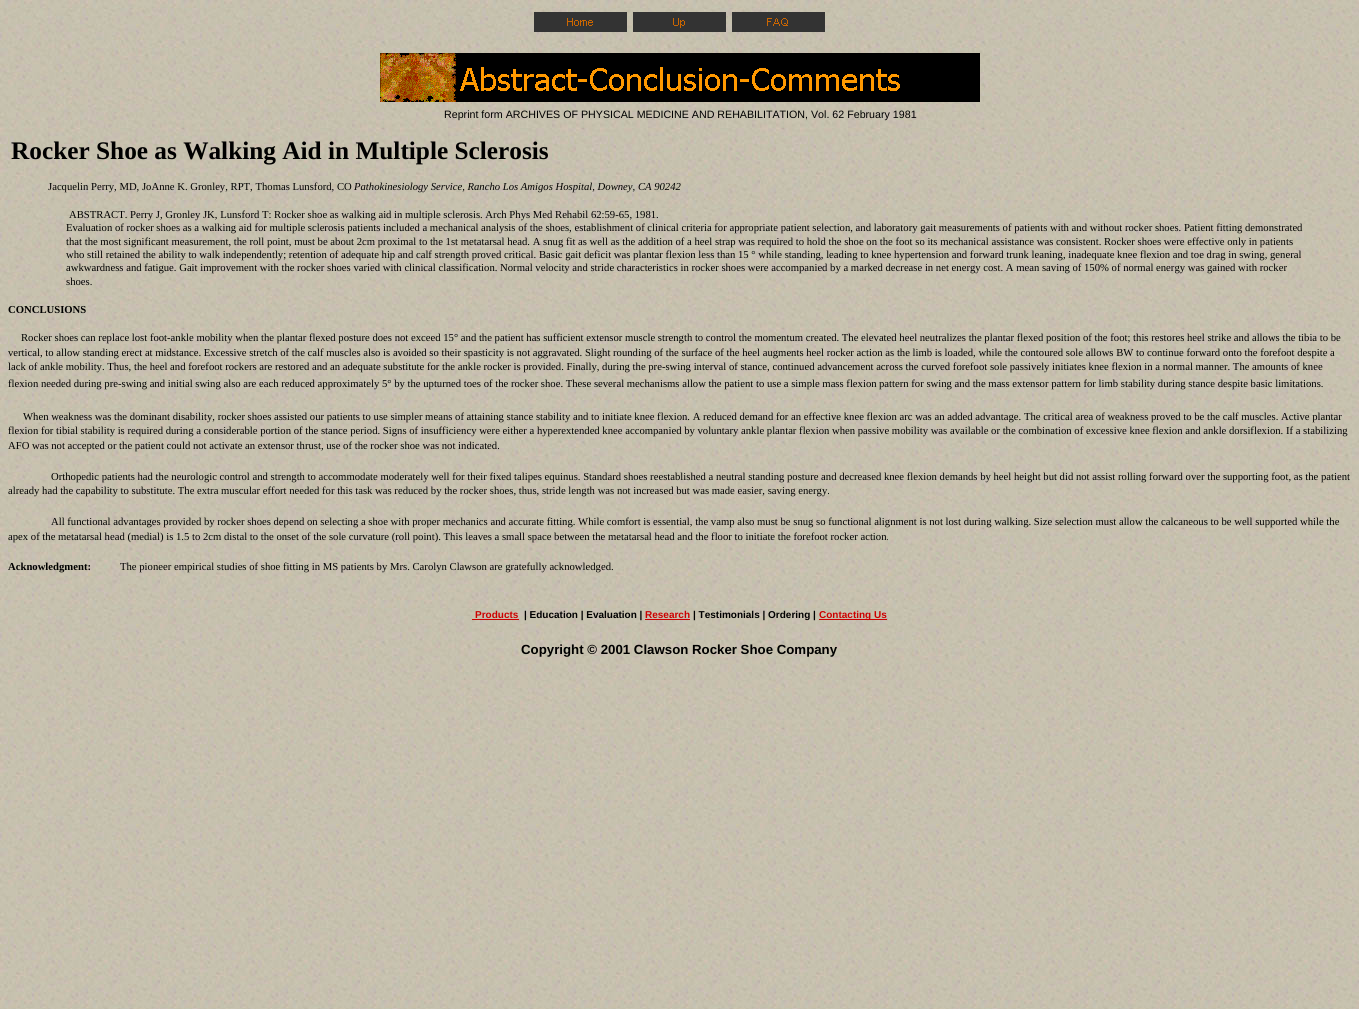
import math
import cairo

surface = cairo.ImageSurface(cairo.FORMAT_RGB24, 1359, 1009)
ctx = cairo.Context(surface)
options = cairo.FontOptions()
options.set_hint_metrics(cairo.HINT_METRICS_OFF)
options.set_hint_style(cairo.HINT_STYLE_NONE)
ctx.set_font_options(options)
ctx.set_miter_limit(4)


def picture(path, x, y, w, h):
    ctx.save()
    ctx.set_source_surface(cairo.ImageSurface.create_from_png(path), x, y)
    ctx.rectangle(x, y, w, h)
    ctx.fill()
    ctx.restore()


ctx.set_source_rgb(1, 1, 1)
ctx.paint()
picture("img1.png", 0, 0, 1359, 1009)
picture("img2.png", 534, 12, 93, 20)
picture("img3.png", 633, 12, 93, 20)
picture("img4.png", 732, 12, 93, 20)
picture("img5.png", 380, 53, 600, 49)
ctx.select_font_face("Liberation Sans")
ctx.set_font_size(10.67)
ctx.set_source_rgb(0, 0, 0)
ctx.move_to(444, 118)
ctx.show_text("Reprint form ARCHIVES OF PHYSICAL MEDICINE AND REHABILITATION, Vol. 62 February 1981")
ctx.select_font_face("Liberation Serif", cairo.FONT_SLANT_NORMAL, cairo.FONT_WEIGHT_BOLD)
ctx.set_font_size(25.3)
ctx.move_to(11, 159)
ctx.show_text("Rocker Shoe as Walking Aid in Multiple Sclerosis")
ctx.select_font_face("Liberation Serif")
ctx.set_font_size(10.67)
ctx.move_to(48, 190)
ctx.show_text("Jacquelin Perry, MD, JoAnne K. Gronley, RPT, Thomas Lunsford, CO")
ctx.select_font_face("Liberation Serif", cairo.FONT_SLANT_ITALIC)
ctx.move_to(354, 190)
ctx.show_text("Pathokinesiology Service, Rancho Los Amigos Hospital, Downey, CA 90242")
ctx.select_font_face("Liberation Serif")
ctx.move_to(69, 218)
ctx.show_text("ABSTRACT. Perry J, Gronley JK, Lunsford T: Rocker shoe as walking aid in multiple sclerosis. Arch Phys Med Rehabil 62:59-65, 1981.")
ctx.move_to(66, 231)
ctx.show_text("Evaluation of rocker shoes as a walking aid for multiple sclerosis patients included a mechanical analysis of the shoes, establishment of clinical criteria for appropriate patient selection, and laboratory gait measurements of patients with and without rocker shoes. Patient fitting demonstrated")
ctx.move_to(66, 245)
ctx.show_text("that the most significant measurement, the roll point, must be about 2cm proximal to the 1st metatarsal head. A snug fit as well as the addition of a heel strap was required to hold the shoe on the foot so its mechanical assistance was consistent. Rocker shoes were effective only in patients")
ctx.move_to(66, 258)
ctx.show_text("who still retained the ability to walk independently; retention of adequate hip and calf strength proved critical. Basic gait deficit was plantar flexion less than 15 ° while standing, leading to knee hypertension and forward trunk leaning, inadequate knee flexion and toe drag in swing, general")
ctx.move_to(66, 271)
ctx.show_text("awkwardness and fatigue. Gait improvement with the rocker shoes varied with clinical classification. Normal velocity and stride characteristics in rocker shoes were accompanied by a marked decrease in net energy cost. A mean saving of 150% of normal energy was gained with rocker")
ctx.move_to(66, 285)
ctx.show_text("shoes.")
ctx.select_font_face("Liberation Serif", cairo.FONT_SLANT_NORMAL, cairo.FONT_WEIGHT_BOLD)
ctx.move_to(8, 313)
ctx.show_text("CONCLUSIONS")
ctx.select_font_face("Liberation Serif")
ctx.move_to(21, 341)
ctx.show_text("Rocker shoes can replace lost foot-ankle mobility when the plantar flexed posture does not exceed 15° and the patient has sufficient extensor muscle strength to control the momentum created. The elevated heel neutralizes the plantar flexed position of the foot; this restores heel strike and allows the tibia to be")
ctx.move_to(8, 356)
ctx.show_text("vertical, to allow standing erect at midstance. Excessive stretch of the calf muscles also is avoided so their spasticity is not aggravated. Slight rounding of the surface of the heel augments heel rocker action as the limb is loaded, while the contoured sole allows BW to continue forward onto the forefoot despite a")
ctx.move_to(8, 370)
ctx.show_text("lack of ankle mobility. Thus, the heel and forefoot rockers are restored and an adequate substitute for the ankle rocker is provided. Finally, during the pre-swing interval of stance, continued advancement across the curved forefoot sole passively initiates knee flexion in a normal manner. The amounts of knee")
ctx.move_to(8, 387)
ctx.show_text("flexion needed during pre-swing and initial swing also are each reduced approximately 5° by the upturned toes of the rocker shoe. These several mechanisms allow the patient to use a simple mass flexion")
ctx.move_to(879, 387)
ctx.show_text("pattern for swing and the mass extensor pattern for limb stability during stance despite basic limitations.")
ctx.move_to(23, 420)
ctx.show_text("When weakness was the dominant disability, rocker shoes assisted our patients to use simpler means of attaining stance stability and to initiate knee flexion. A reduced demand for an effective knee flexion arc was an added advantage. The critical area of weakness proved to be the calf muscles. Active plantar")
ctx.move_to(8, 434)
ctx.show_text("flexion for tibial stability is required during a considerable portion of the stance period. Signs of insufficiency were either a hyperextended knee accompanied by voluntary ankle plantar flexion when passive mobility was available or the combination of excessive knee flexion and ankle dorsiflexion. If a stabilizing")
ctx.move_to(8, 449)
ctx.show_text("AFO was not accepted or the patient could not activate an extensor thrust, use of the rocker shoe was not indicated.")
ctx.move_to(51, 480)
ctx.show_text("Orthopedic patients had the neurologic control and strength to accommodate moderately well for their fixed talipes equinus. Standard shoes reestablished a neutral standing posture and decreased knee flexion demands by heel height but did not assist rolling forward over the supporting foot, as the patient")
ctx.move_to(8, 494)
ctx.show_text("already had the capability to substitute. The extra muscular effort needed for this task was reduced by the rocker shoes, thus, stride length was not increased but was made easier, saving energy.")
ctx.move_to(51, 525)
ctx.show_text("All functional advantages provided by rocker shoes depend on selecting a shoe with proper mechanics and accurate fitting. While comfort is essential, the vamp also must be snug so functional alignment is not lost during walking. Size selection must allow the calcaneous to be well supported while the")
ctx.move_to(8, 540)
ctx.show_text("apex of the metatarsal head (medial) is 1.5 to 2cm distal to the onset of the sole curvature (roll point). This leaves a small space between the metatarsal head and the floor to initiate the forefoot rocker action.")
ctx.select_font_face("Liberation Serif", cairo.FONT_SLANT_NORMAL, cairo.FONT_WEIGHT_BOLD)
ctx.move_to(8, 570)
ctx.show_text("Acknowledgment:")
ctx.select_font_face("Liberation Serif")
ctx.move_to(120, 570)
ctx.show_text("The pioneer empirical studies of shoe fitting in MS patients by Mrs. Carolyn Clawson are gratefully acknowledged.")
ctx.select_font_face("Liberation Sans", cairo.FONT_SLANT_NORMAL, cairo.FONT_WEIGHT_BOLD)
ctx.set_font_size(10)
ctx.set_source_rgb(0.8, 0, 0)
ctx.move_to(475, 618)
ctx.show_text("Products")
ctx.rectangle(472, 619, 47, 1)
ctx.fill()
ctx.set_source_rgb(0, 0, 0)
ctx.move_to(524, 618)
ctx.show_text("| Education | Evaluation |")
ctx.set_source_rgb(0.8, 0, 0)
ctx.move_to(645, 618)
ctx.show_text("Research")
ctx.rectangle(645, 619, 45, 1)
ctx.fill()
ctx.set_source_rgb(0, 0, 0)
ctx.move_to(693, 618)
ctx.show_text("| Testimonials | Ordering |")
ctx.set_source_rgb(0.8, 0, 0)
ctx.rectangle(819, 619, 68, 1)
ctx.fill()
ctx.move_to(819, 618)
ctx.show_text("Contacting Us")
ctx.set_font_size(13.25)
ctx.set_source_rgb(0, 0, 0)
ctx.move_to(521, 654)
ctx.show_text("Copyright © 2001 Clawson Rocker Shoe Company")
surface.write_to_png("page.png")
